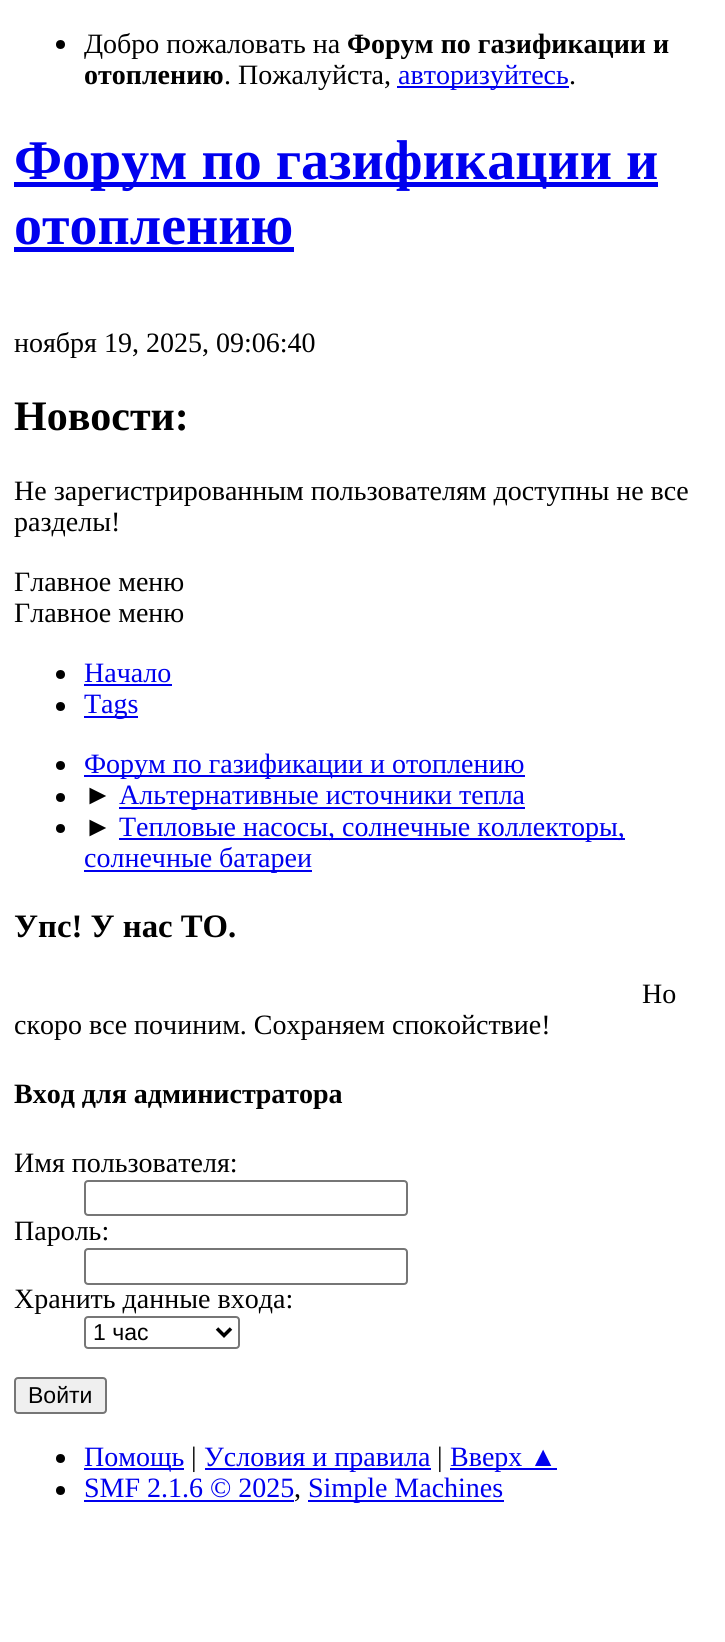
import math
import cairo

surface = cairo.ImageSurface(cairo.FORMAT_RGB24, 725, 1642)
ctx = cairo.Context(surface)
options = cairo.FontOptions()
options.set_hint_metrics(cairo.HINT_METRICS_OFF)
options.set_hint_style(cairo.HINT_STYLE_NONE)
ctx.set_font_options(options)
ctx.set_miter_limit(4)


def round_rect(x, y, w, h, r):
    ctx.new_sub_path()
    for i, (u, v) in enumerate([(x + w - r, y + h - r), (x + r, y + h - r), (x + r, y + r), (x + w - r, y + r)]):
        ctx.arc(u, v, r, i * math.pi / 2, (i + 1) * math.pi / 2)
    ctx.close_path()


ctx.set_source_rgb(1, 1, 1)
ctx.paint()
ctx.set_source_rgb(0, 0, 0)
ctx.arc(60.5, 44.5, 4.5, 0, 2 * math.pi)
ctx.fill()
ctx.select_font_face("Liberation Serif")
ctx.set_font_size(28)
ctx.move_to(84, 53)
ctx.show_text("Добро пожаловать на")
ctx.select_font_face("Liberation Serif", cairo.FONT_SLANT_NORMAL, cairo.FONT_WEIGHT_BOLD)
ctx.move_to(347, 53)
ctx.show_text("Форум по газификации и")
ctx.move_to(84, 84)
ctx.show_text("отоплению")
ctx.select_font_face("Liberation Serif")
ctx.move_to(224, 84)
ctx.show_text(". Пожалуйста,")
ctx.set_source_rgb(0, 0, 0.933)
ctx.rectangle(397, 86, 172, 2)
ctx.fill()
ctx.move_to(398, 84)
ctx.show_text("авторизуйтесь")
ctx.set_source_rgb(0, 0, 0)
ctx.move_to(569, 84)
ctx.show_text(".")
ctx.set_source_rgb(0, 0, 0.933)
ctx.rectangle(14, 182, 644, 5)
ctx.fill()
ctx.select_font_face("Liberation Serif", cairo.FONT_SLANT_NORMAL, cairo.FONT_WEIGHT_BOLD)
ctx.set_font_size(56)
ctx.move_to(14, 179)
ctx.show_text("Форум по газификации и")
ctx.move_to(14, 244)
ctx.show_text("отоплению")
ctx.rectangle(14, 247, 280, 5)
ctx.fill()
ctx.select_font_face("Liberation Serif")
ctx.set_font_size(28)
ctx.set_source_rgb(0, 0, 0)
ctx.move_to(14, 352)
ctx.show_text("ноября 19, 2025, 09:06:40")
ctx.select_font_face("Liberation Serif", cairo.FONT_SLANT_NORMAL, cairo.FONT_WEIGHT_BOLD)
ctx.set_font_size(42)
ctx.move_to(14, 430)
ctx.show_text("Новости:")
ctx.select_font_face("Liberation Serif")
ctx.set_font_size(28)
ctx.move_to(14, 500)
ctx.show_text("Не зарегистрированным пользователям доступны не все")
ctx.move_to(14, 531)
ctx.show_text("разделы!")
ctx.move_to(14, 591)
ctx.show_text("Главное меню")
ctx.move_to(14, 622)
ctx.show_text("Главное меню")
ctx.new_path()
ctx.arc(60.5, 674.5, 4.5, 0, 2 * math.pi)
ctx.fill()
ctx.set_source_rgb(0, 0, 0.933)
ctx.move_to(84, 682)
ctx.show_text("Начало")
ctx.rectangle(84, 684, 88, 2)
ctx.fill()
ctx.set_source_rgb(0, 0, 0)
ctx.arc(60.5, 706.5, 4.5, 0, 2 * math.pi)
ctx.fill()
ctx.set_source_rgb(0, 0, 0.933)
ctx.rectangle(84, 716, 54, 2)
ctx.fill()
ctx.move_to(84, 713)
ctx.show_text("Tags")
ctx.set_source_rgb(0, 0, 0)
ctx.new_path()
ctx.arc(60.5, 765.5, 4.5, 0, 2 * math.pi)
ctx.fill()
ctx.set_source_rgb(0, 0, 0.933)
ctx.rectangle(84, 775, 441, 2)
ctx.fill()
ctx.move_to(84, 773)
ctx.show_text("Форум по газификации и отоплению")
ctx.set_source_rgb(0, 0, 0)
ctx.new_path()
ctx.arc(60.5, 797.5, 4.5, 0, 2 * math.pi)
ctx.fill()
ctx.move_to(84, 804)
ctx.show_text("►")
ctx.set_source_rgb(0, 0, 0.933)
ctx.rectangle(119, 807, 406, 2)
ctx.fill()
ctx.move_to(119, 804)
ctx.show_text("Альтернативные источники тепла")
ctx.set_source_rgb(0, 0, 0)
ctx.new_path()
ctx.arc(60.5, 828.5, 4.5, 0, 2 * math.pi)
ctx.fill()
ctx.move_to(84, 836)
ctx.show_text("►")
ctx.set_source_rgb(0, 0, 0.933)
ctx.rectangle(119, 838, 506, 2)
ctx.fill()
ctx.move_to(119, 836)
ctx.show_text("Тепловые насосы, солнечные коллекторы,")
ctx.rectangle(84, 870, 228, 2)
ctx.fill()
ctx.move_to(84, 867)
ctx.show_text("солнечные батареи")
ctx.select_font_face("Liberation Serif", cairo.FONT_SLANT_NORMAL, cairo.FONT_WEIGHT_BOLD)
ctx.set_font_size(32.75)
ctx.set_source_rgb(0, 0, 0)
ctx.move_to(14, 937)
ctx.show_text("Упс! У нас ТО.")
ctx.select_font_face("Liberation Serif")
ctx.set_font_size(28)
ctx.move_to(642, 1003)
ctx.show_text("Но")
ctx.move_to(14, 1034)
ctx.show_text("скоро все починим. Сохраняем спокойствие!")
ctx.select_font_face("Liberation Serif", cairo.FONT_SLANT_NORMAL, cairo.FONT_WEIGHT_BOLD)
ctx.move_to(14, 1103)
ctx.show_text("Вход для администратора")
ctx.select_font_face("Liberation Serif")
ctx.move_to(14, 1172)
ctx.show_text("Имя пользователя:")
round_rect(85, 1181, 322, 34, 3)
ctx.set_source_rgb(0.463, 0.463, 0.463)
ctx.stroke()
ctx.set_source_rgb(0, 0, 0)
ctx.move_to(14, 1240)
ctx.show_text("Пароль:")
round_rect(85, 1249, 322, 35, 3)
ctx.set_source_rgb(0.463, 0.463, 0.463)
ctx.stroke()
ctx.set_source_rgb(0, 0, 0)
ctx.move_to(14, 1308)
ctx.show_text("Хранить данные входа:")
round_rect(85, 1317, 154, 31, 3)
ctx.set_source_rgb(0.463, 0.463, 0.463)
ctx.stroke()
ctx.new_path()
ctx.move_to(217, 1328.5)
ctx.line_to(224, 1335.5)
ctx.line_to(231, 1328.5)
ctx.set_source_rgb(0, 0, 0)
ctx.set_line_width(3.5)
ctx.stroke()
ctx.select_font_face("Liberation Sans")
ctx.set_font_size(23)
ctx.move_to(93, 1340)
ctx.show_text("1 час")
ctx.set_source_rgb(0.937, 0.937, 0.937)
round_rect(15, 1378, 91, 35, 3)
ctx.fill_preserve()
ctx.set_source_rgb(0.463, 0.463, 0.463)
ctx.set_line_width(2)
ctx.stroke()
ctx.set_source_rgb(0, 0, 0)
ctx.move_to(28, 1403)
ctx.show_text("Войти")
ctx.new_path()
ctx.arc(60.5, 1458.5, 4.5, 0, 2 * math.pi)
ctx.fill()
ctx.set_source_rgb(0, 0, 0.933)
ctx.rectangle(84, 1468, 100, 2)
ctx.fill()
ctx.select_font_face("Liberation Serif")
ctx.set_font_size(28)
ctx.move_to(84, 1466)
ctx.show_text("Помощь")
ctx.set_source_rgb(0, 0, 0)
ctx.move_to(191, 1466)
ctx.show_text("|")
ctx.set_source_rgb(0, 0, 0.933)
ctx.rectangle(205, 1468, 226, 2)
ctx.fill()
ctx.move_to(204, 1466)
ctx.show_text("Условия и правила")
ctx.set_source_rgb(0, 0, 0)
ctx.move_to(437, 1466)
ctx.show_text("|")
ctx.set_source_rgb(0, 0, 0.933)
ctx.rectangle(450, 1468, 107, 2)
ctx.fill()
ctx.move_to(450, 1466)
ctx.show_text("Вверх ▲")
ctx.set_source_rgb(0, 0, 0)
ctx.new_path()
ctx.arc(60.5, 1490.5, 4.5, 0, 2 * math.pi)
ctx.fill()
ctx.set_source_rgb(0, 0, 0.933)
ctx.move_to(84, 1497)
ctx.show_text("SMF 2.1.6 © 2025")
ctx.rectangle(84, 1500, 210, 2)
ctx.fill()
ctx.rectangle(308, 1500, 196, 2)
ctx.fill()
ctx.move_to(308, 1497)
ctx.show_text("Simple Machines")
ctx.set_source_rgb(0, 0, 0)
ctx.move_to(294, 1497)
ctx.show_text(",")
surface.write_to_png("page.png")
